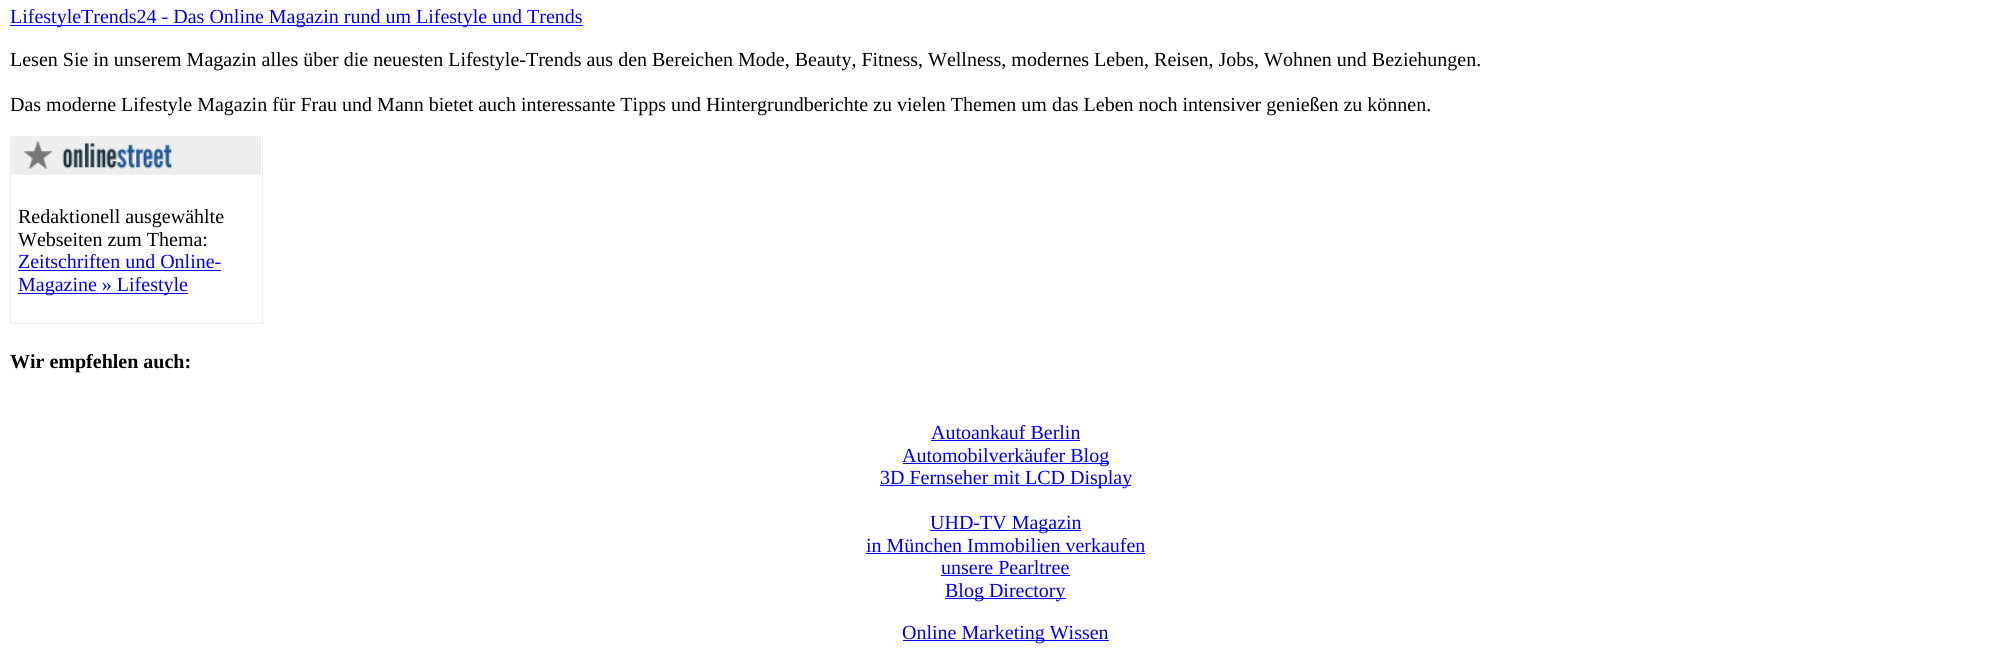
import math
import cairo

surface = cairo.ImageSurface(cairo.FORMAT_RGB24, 2011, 655)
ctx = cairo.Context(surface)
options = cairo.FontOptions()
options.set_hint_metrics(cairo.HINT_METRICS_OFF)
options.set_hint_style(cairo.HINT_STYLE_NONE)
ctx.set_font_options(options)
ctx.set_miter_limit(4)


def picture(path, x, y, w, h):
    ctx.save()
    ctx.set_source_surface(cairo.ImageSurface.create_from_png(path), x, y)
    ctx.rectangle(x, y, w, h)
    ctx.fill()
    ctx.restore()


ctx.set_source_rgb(1, 1, 1)
ctx.paint()
ctx.set_source_rgb(0, 0, 0.933)
ctx.rectangle(10, 25, 573, 1)
ctx.fill()
ctx.select_font_face("Liberation Serif")
ctx.set_font_size(20)
ctx.move_to(10, 23)
ctx.show_text("LifestyleTrends24 - Das Online Magazin rund um Lifestyle und Trends")
ctx.set_source_rgb(0, 0, 0)
ctx.move_to(10, 66)
ctx.show_text("Lesen Sie in unserem Magazin alles über die neuesten Lifestyle-Trends aus den Bereichen Mode, Beauty, Fitness, Wellness, modernes Leben, Reisen, Jobs, Wohnen und Beziehungen.")
ctx.move_to(10, 111)
ctx.show_text("Das moderne Lifestyle Magazin für Frau und Mann bietet auch interessante Tipps und Hintergrundberichte zu vielen Themen um das Leben noch intensiver genießen zu können.")
ctx.rectangle(10.5, 136.5, 252, 187)
ctx.set_source_rgb(0.933, 0.933, 0.933)
ctx.set_line_width(1)
ctx.stroke()
picture("img1.png", 11, 137, 251, 38)
ctx.set_source_rgb(0, 0, 0)
ctx.move_to(18, 223)
ctx.show_text("Redaktionell ausgewählte")
ctx.move_to(18, 246)
ctx.show_text("Webseiten zum Thema:")
ctx.set_source_rgb(0, 0, 0.933)
ctx.move_to(18, 268)
ctx.show_text("Zeitschriften und Online-")
ctx.rectangle(18, 270, 203, 1)
ctx.fill()
ctx.rectangle(18, 293, 170, 1)
ctx.fill()
ctx.move_to(18, 291)
ctx.show_text("Magazine » Lifestyle")
ctx.select_font_face("Liberation Serif", cairo.FONT_SLANT_NORMAL, cairo.FONT_WEIGHT_BOLD)
ctx.set_source_rgb(0, 0, 0)
ctx.move_to(10, 368)
ctx.show_text("Wir empfehlen auch:")
ctx.select_font_face("Liberation Serif")
ctx.set_source_rgb(0, 0, 0.933)
ctx.move_to(931, 439)
ctx.show_text("Autoankauf Berlin")
ctx.rectangle(931, 440, 149, 1)
ctx.fill()
ctx.rectangle(903, 463, 206, 1)
ctx.fill()
ctx.move_to(902, 462)
ctx.show_text("Automobilverkäufer Blog")
ctx.rectangle(880, 485, 251, 1)
ctx.fill()
ctx.move_to(880, 484)
ctx.show_text("3D Fernseher mit LCD Display")
ctx.rectangle(930, 530, 151, 1)
ctx.fill()
ctx.move_to(930, 529)
ctx.show_text("UHD-TV Magazin")
ctx.move_to(866, 552)
ctx.show_text("in München Immobilien verkaufen")
ctx.rectangle(866, 553, 279, 1)
ctx.fill()
ctx.move_to(941, 574)
ctx.show_text("unsere Pearltree")
ctx.rectangle(941, 575, 129, 1)
ctx.fill()
ctx.rectangle(945, 598, 121, 1)
ctx.fill()
ctx.move_to(945, 597)
ctx.show_text("Blog Directory")
ctx.rectangle(903, 640, 206, 1)
ctx.fill()
ctx.move_to(902, 639)
ctx.show_text("Online Marketing Wissen")
surface.write_to_png("page.png")
